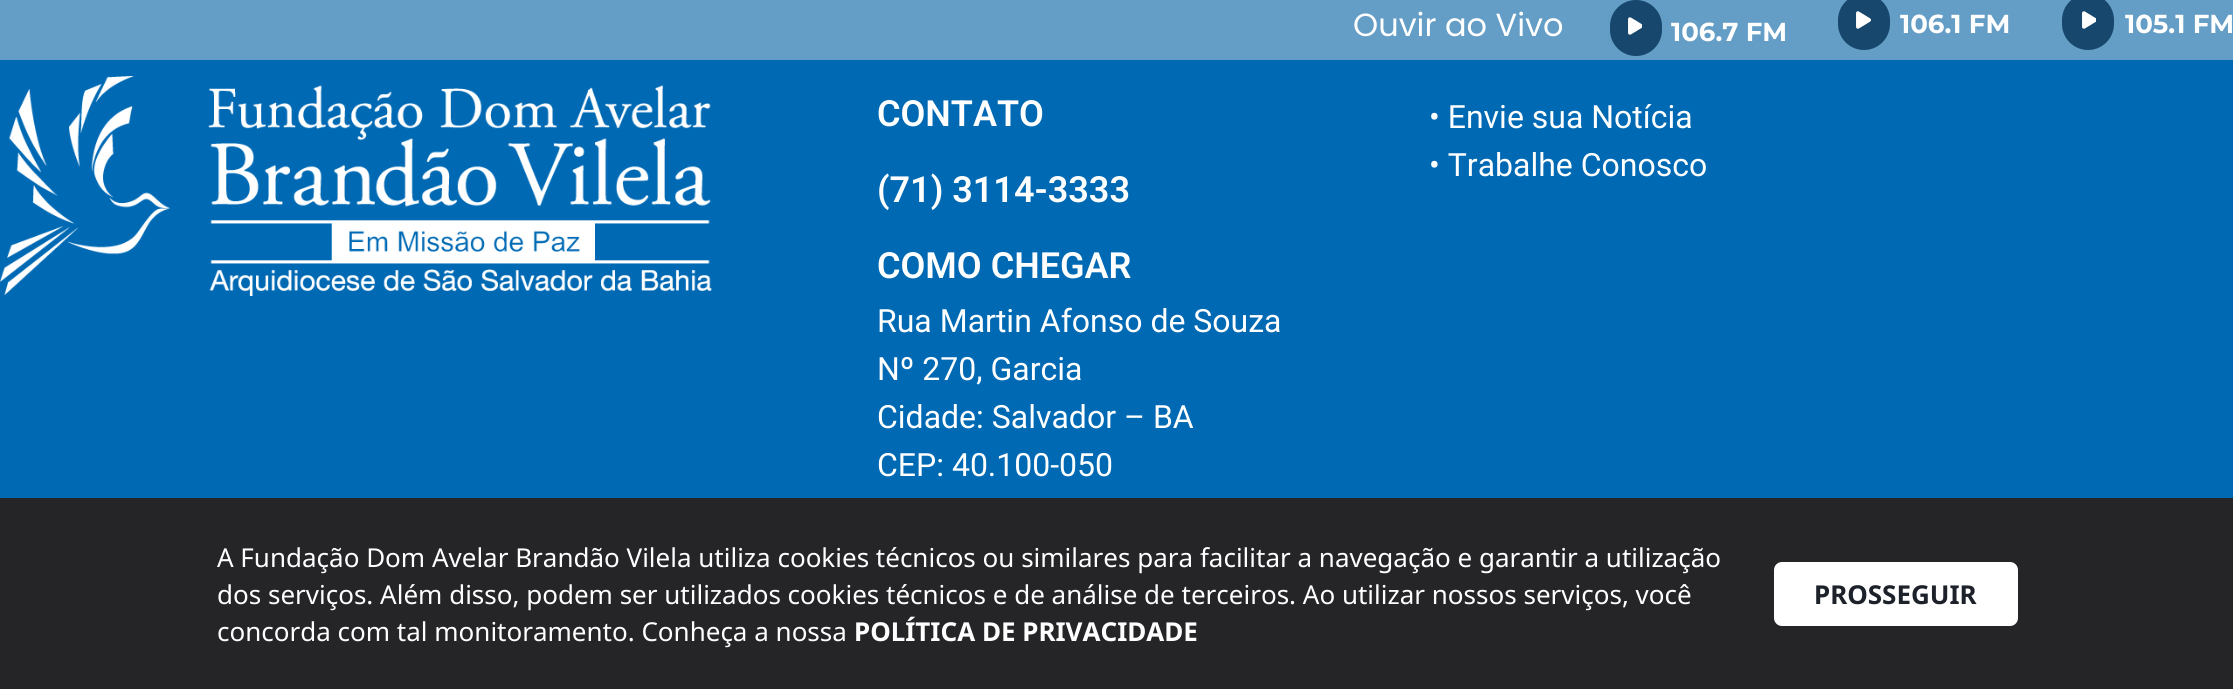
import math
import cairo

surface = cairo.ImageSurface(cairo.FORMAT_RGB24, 2233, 689)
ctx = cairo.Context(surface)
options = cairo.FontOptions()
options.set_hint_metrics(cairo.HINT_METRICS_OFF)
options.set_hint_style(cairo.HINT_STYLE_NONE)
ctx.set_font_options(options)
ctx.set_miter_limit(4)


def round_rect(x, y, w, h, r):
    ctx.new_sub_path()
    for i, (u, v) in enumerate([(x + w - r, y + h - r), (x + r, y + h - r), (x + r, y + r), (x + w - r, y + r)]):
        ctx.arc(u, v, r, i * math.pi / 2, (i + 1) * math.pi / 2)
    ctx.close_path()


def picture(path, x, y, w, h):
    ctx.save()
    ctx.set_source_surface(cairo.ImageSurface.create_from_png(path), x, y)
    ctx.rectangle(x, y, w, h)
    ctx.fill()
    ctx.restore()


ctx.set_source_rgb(0, 0.412, 0.706)
ctx.paint()
ctx.set_source_rgb(0.392, 0.616, 0.773)
ctx.rectangle(0, 0, 2233, 60)
ctx.fill()
ctx.select_font_face("Poppins")
ctx.set_font_size(32)
ctx.set_source_rgb(1, 1, 1)
ctx.move_to(1353, 36)
ctx.show_text("Ouvir ao Vivo")
ctx.set_source_rgb(0.09, 0.278, 0.427)
round_rect(1610, 0, 52, 56, 26)
ctx.fill()
picture("img1.png", 1628, 17, 14, 18)
ctx.select_font_face("Montserrat", cairo.FONT_SLANT_NORMAL, cairo.FONT_WEIGHT_BOLD)
ctx.set_font_size(26)
ctx.set_source_rgb(1, 1, 1)
ctx.move_to(1671, 41)
ctx.show_text("106.7 FM")
ctx.set_source_rgb(0.09, 0.278, 0.427)
round_rect(1838, -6, 52, 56, 26)
ctx.fill()
picture("img2.png", 1856, 11, 15, 18)
ctx.set_source_rgb(1, 1, 1)
ctx.move_to(1900, 33)
ctx.show_text("106.1 FM")
ctx.set_source_rgb(0.09, 0.278, 0.427)
round_rect(2062, -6, 52, 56, 26)
ctx.fill()
picture("img1.png", 2082, 11, 14, 18)
ctx.set_source_rgb(1, 1, 1)
ctx.move_to(2125, 33)
ctx.show_text("105.1 FM")
picture("img3.png", 0, 76, 712, 220)
ctx.select_font_face("Roboto SemiBold")
ctx.set_font_size(36)
ctx.move_to(877, 126)
ctx.show_text("CONTATO")
ctx.move_to(877, 202)
ctx.show_text("(71) 3114-3333")
ctx.move_to(877, 278)
ctx.show_text("COMO CHEGAR")
ctx.select_font_face("Roboto")
ctx.set_font_size(32)
ctx.move_to(877, 332)
ctx.show_text("Rua Martin Afonso de Souza")
ctx.move_to(877, 380)
ctx.show_text("Nº 270, Garcia")
ctx.move_to(877, 428)
ctx.show_text("Cidade: Salvador – BA")
ctx.move_to(877, 476)
ctx.show_text("CEP: 40.100-050")
ctx.move_to(1429, 128)
ctx.show_text("• Envie sua Notícia")
ctx.move_to(1429, 176)
ctx.show_text("• Trabalhe Conosco")
ctx.set_source_rgb(0.145, 0.145, 0.157)
ctx.rectangle(0, 498, 2233, 191)
ctx.fill()
ctx.select_font_face("Noto Sans")
ctx.set_font_size(26)
ctx.set_source_rgb(1, 1, 1)
ctx.move_to(217, 567)
ctx.show_text("A Fundação Dom Avelar Brandão Vilela utiliza cookies técnicos ou similares para facilitar a navegação e garantir a utilização")
ctx.move_to(217, 604)
ctx.show_text("dos serviços. Além disso, podem ser utilizados cookies técnicos e de análise de terceiros. Ao utilizar nossos serviços, você")
ctx.move_to(217, 641)
ctx.show_text("concorda com tal monitoramento. Conheça a nossa")
ctx.select_font_face("Noto Sans", cairo.FONT_SLANT_NORMAL, cairo.FONT_WEIGHT_BOLD)
ctx.move_to(854, 641)
ctx.show_text("POLÍTICA DE PRIVACIDADE")
round_rect(1774, 562, 244, 64, 8)
ctx.fill()
ctx.set_source_rgb(0.114, 0.129, 0.161)
ctx.move_to(1814, 604)
ctx.show_text("PROSSEGUIR")
surface.write_to_png("page.png")
